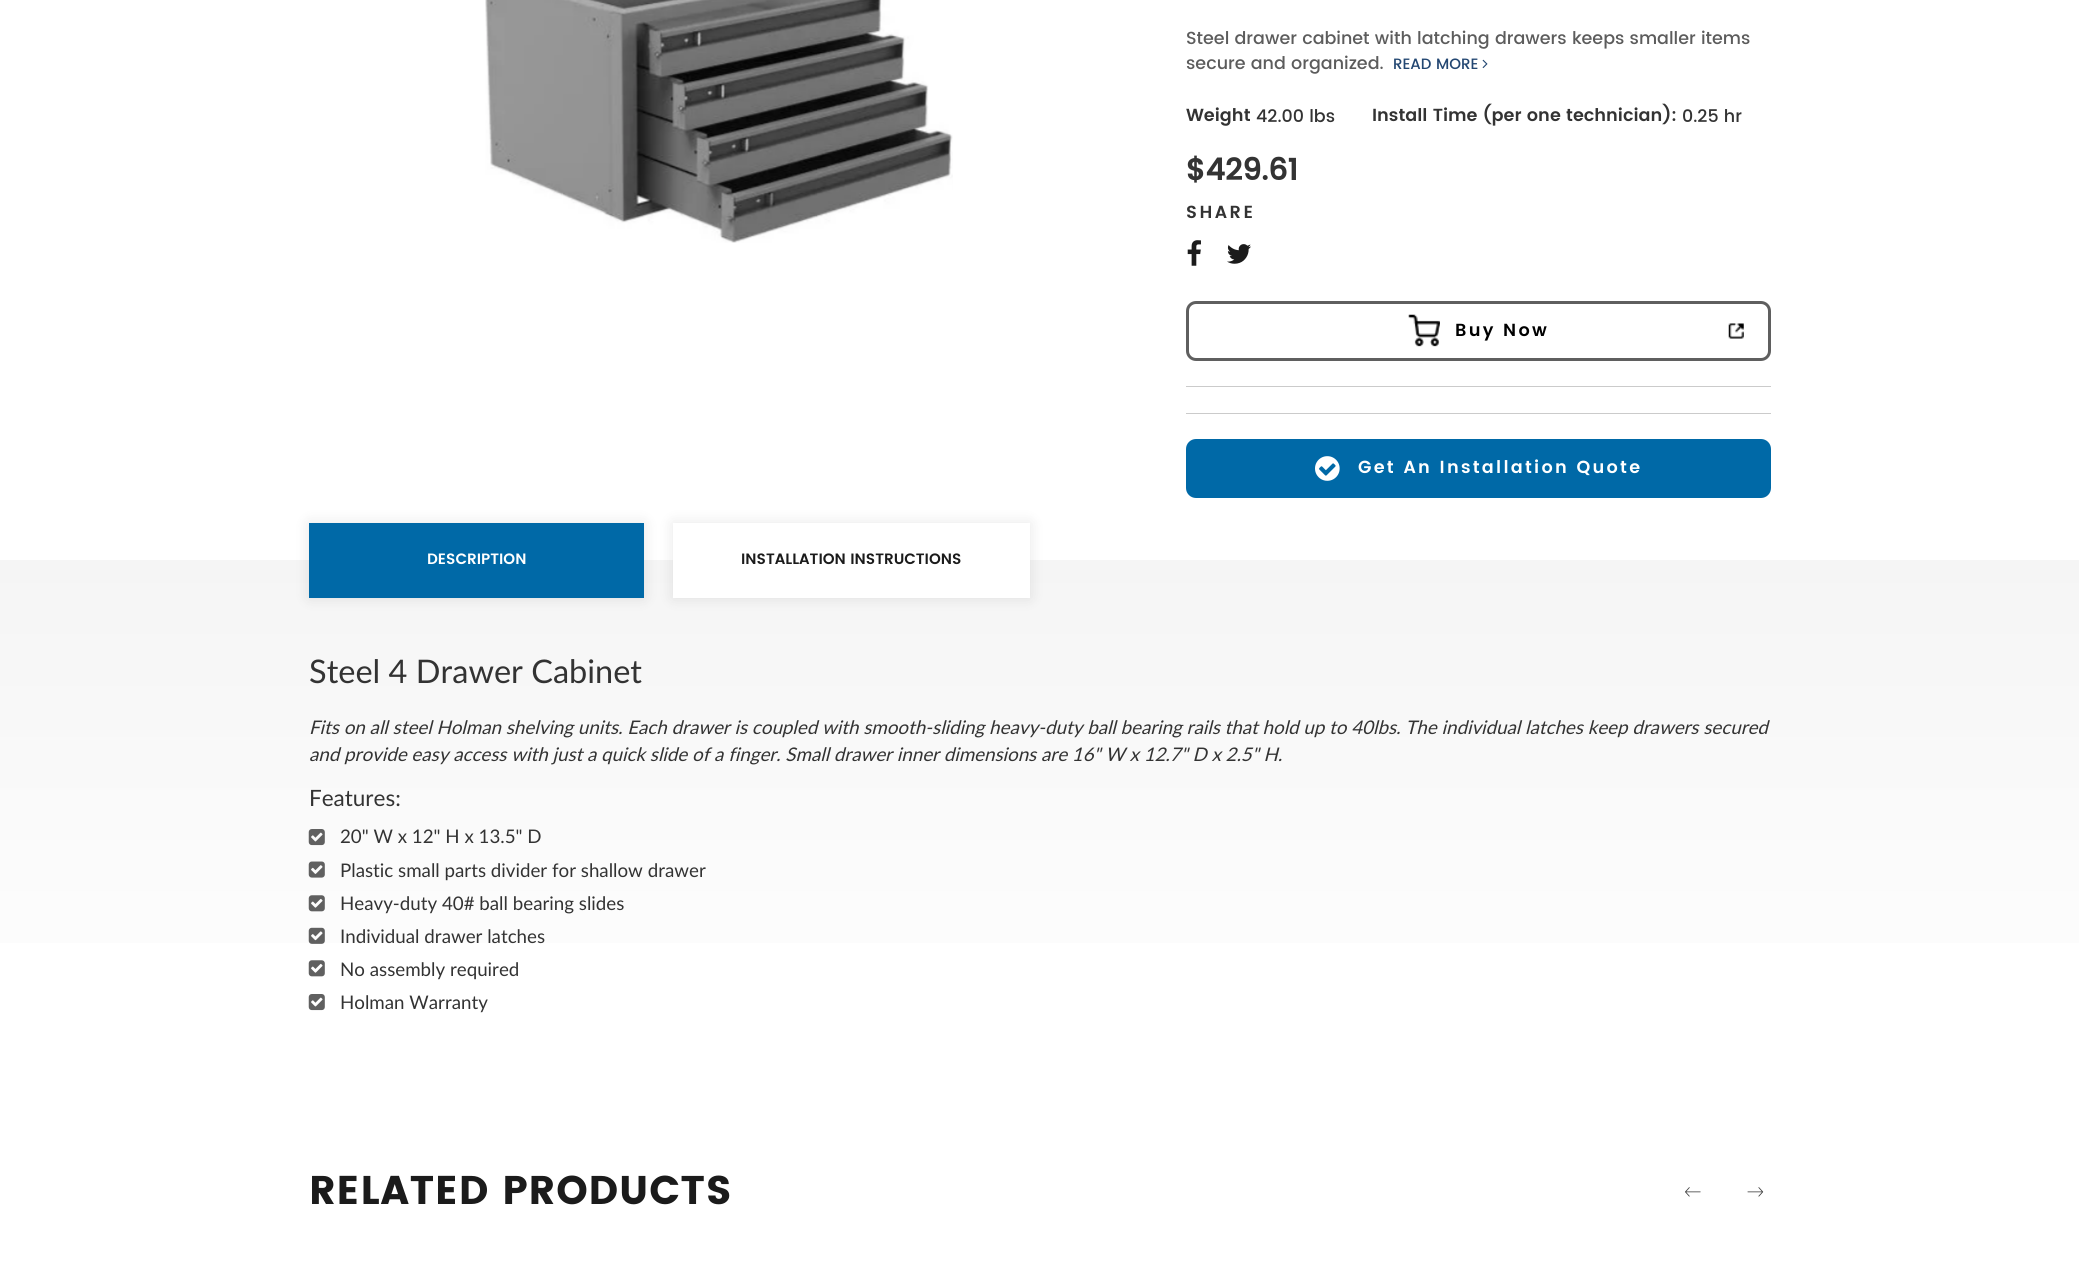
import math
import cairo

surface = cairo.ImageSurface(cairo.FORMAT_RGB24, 2079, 1264)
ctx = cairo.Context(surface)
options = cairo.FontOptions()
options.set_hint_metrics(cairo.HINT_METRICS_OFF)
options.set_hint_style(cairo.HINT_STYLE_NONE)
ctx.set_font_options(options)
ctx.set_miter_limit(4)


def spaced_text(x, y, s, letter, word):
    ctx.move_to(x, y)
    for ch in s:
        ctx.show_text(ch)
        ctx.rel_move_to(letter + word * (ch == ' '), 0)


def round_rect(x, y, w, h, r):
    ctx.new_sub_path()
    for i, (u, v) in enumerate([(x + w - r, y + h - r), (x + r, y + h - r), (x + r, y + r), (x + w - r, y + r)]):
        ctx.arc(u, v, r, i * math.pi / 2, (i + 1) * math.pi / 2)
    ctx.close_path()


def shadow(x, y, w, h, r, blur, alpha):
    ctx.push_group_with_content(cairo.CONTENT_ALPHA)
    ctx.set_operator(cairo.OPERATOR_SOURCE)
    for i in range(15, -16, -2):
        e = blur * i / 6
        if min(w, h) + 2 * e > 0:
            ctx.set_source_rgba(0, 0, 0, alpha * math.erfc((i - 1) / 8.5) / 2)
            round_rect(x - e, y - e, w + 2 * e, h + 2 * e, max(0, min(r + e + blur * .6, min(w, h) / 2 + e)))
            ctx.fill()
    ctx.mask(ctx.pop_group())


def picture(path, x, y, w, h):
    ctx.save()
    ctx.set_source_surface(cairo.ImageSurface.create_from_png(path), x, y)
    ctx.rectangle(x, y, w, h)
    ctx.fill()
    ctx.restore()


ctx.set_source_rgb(1, 1, 1)
ctx.paint()
picture("img1.png", 485, 0, 468, 243)
ctx.select_font_face("Poppins Medium")
ctx.set_font_size(17.5)
ctx.set_source_rgb(0.361, 0.361, 0.361)
ctx.move_to(1186, 44)
ctx.show_text("Steel drawer cabinet with latching drawers keeps smaller items")
ctx.move_to(1186, 69)
ctx.show_text("secure and organized.")
ctx.set_font_size(15)
ctx.set_source_rgb(0.137, 0.278, 0.447)
ctx.move_to(1393, 69)
ctx.show_text("READ MORE")
picture("img2.png", 1482, 59, 6, 10)
ctx.select_font_face("Poppins SemiBold")
ctx.set_font_size(17.5)
ctx.set_source_rgb(0.2, 0.2, 0.2)
ctx.move_to(1186, 121)
ctx.show_text("Weight")
ctx.select_font_face("Poppins Medium")
ctx.move_to(1256, 122)
ctx.show_text("42.00 lbs")
ctx.select_font_face("Poppins SemiBold")
ctx.move_to(1372, 121)
ctx.show_text("Install Time (per one technician):")
ctx.select_font_face("Poppins Medium")
ctx.move_to(1682, 122)
ctx.show_text("0.25 hr")
ctx.select_font_face("Poppins", cairo.FONT_SLANT_NORMAL, cairo.FONT_WEIGHT_BOLD)
ctx.set_font_size(30)
ctx.move_to(1186, 180)
ctx.show_text("$429.61")
ctx.select_font_face("Poppins SemiBold")
ctx.set_font_size(17.5)
spaced_text(1186, 218, "SHARE", 2.5, 0)
picture("img3.png", 1187, 240, 14, 26)
picture("img4.png", 1227, 244, 24, 20)
ctx.set_source_rgb(0.796, 0.796, 0.796)
ctx.rectangle(1186, 386, 585, 1)
ctx.fill()
round_rect(1187.5, 302.5, 582, 57, 8.5)
ctx.set_source_rgb(0.373, 0.373, 0.373)
ctx.set_line_width(3)
ctx.stroke()
picture("img5.png", 1408, 314, 32, 33)
ctx.set_source_rgb(0, 0, 0)
spaced_text(1455, 336, "Buy Now", 2.25, 0)
picture("img6.png", 1728, 323, 16, 16)
ctx.set_source_rgb(0.796, 0.796, 0.796)
ctx.rectangle(1186, 413, 585, 1)
ctx.fill()
ctx.set_source_rgb(0, 0.412, 0.655)
round_rect(1187.5, 440.5, 582, 56, 8.5)
ctx.fill_preserve()
ctx.stroke()
picture("img7.png", 1315, 456, 25, 25)
ctx.set_source_rgb(1, 1, 1)
spaced_text(1358, 473, "Get An Installation Quote", 2.25, 0)
gradient = cairo.LinearGradient(1040, 560, 1040, 1071)
gradient.add_color_stop_rgba(0, 0.859, 0.859, 0.859, 1)
gradient.add_color_stop_rgba(0, 0.82, 0.82, 0.82, 1)
gradient.add_color_stop_rgba(0, 0.961, 0.961, 0.961, 1)
gradient.add_color_stop_rgba(1, 1, 1, 1, 1)
ctx.set_source(gradient)
ctx.rectangle(0, 560, 2079, 383)
ctx.fill()
ctx.set_source_rgb(0, 0, 0)
shadow(309, 523, 335, 75, 0, 7, 0.1)
ctx.set_source_rgb(0, 0.412, 0.655)
ctx.rectangle(309, 523, 335, 75)
ctx.fill()
ctx.set_font_size(15)
ctx.set_source_rgb(1, 1, 1)
ctx.move_to(427, 564)
ctx.show_text("DESCRIPTION")
ctx.set_source_rgb(0, 0, 0)
shadow(673, 523, 357, 75, 0, 7, 0.1)
ctx.set_source_rgb(1, 1, 1)
ctx.rectangle(673, 523, 357, 75)
ctx.fill()
ctx.set_source_rgb(0.106, 0.106, 0.106)
ctx.move_to(741, 564)
ctx.show_text("INSTALLATION INSTRUCTIONS")
ctx.select_font_face("Lato")
ctx.set_font_size(32.5)
ctx.set_source_rgb(0.2, 0.2, 0.2)
ctx.move_to(309, 683)
ctx.show_text("Steel 4 Drawer Cabinet")
ctx.select_font_face("Lato", cairo.FONT_SLANT_ITALIC)
ctx.set_font_size(18.75)
ctx.move_to(309, 734)
ctx.show_text("Fits on all steel Holman shelving units. Each drawer is coupled with smooth-sliding heavy-duty ball bearing rails that hold up to 40lbs. The individual latches keep drawers secured")
ctx.move_to(309, 761)
ctx.show_text("and provide easy access with just a quick slide of a finger. Small drawer inner dimensions are 16\" W x 12.7\" D x 2.5\" H.")
ctx.select_font_face("Lato")
ctx.set_font_size(22.5)
ctx.move_to(309, 806)
ctx.show_text("Features:")
picture("img8.png", 308, 829, 17, 17)
ctx.set_font_size(18.75)
ctx.move_to(340, 843)
ctx.show_text("20\" W x 12\" H x 13.5\" D")
picture("img9.png", 308, 861, 17, 17)
ctx.move_to(340, 877)
ctx.show_text("Plastic small parts divider for shallow drawer")
picture("img10.png", 308, 895, 17, 17)
ctx.move_to(340, 910)
ctx.show_text("Heavy-duty 40# ball bearing slides")
picture("img11.png", 308, 927, 17, 17)
ctx.move_to(340, 943)
ctx.show_text("Individual drawer latches")
picture("img12.png", 308, 960, 17, 17)
ctx.move_to(340, 976)
ctx.show_text("No assembly required")
picture("img13.png", 308, 994, 17, 17)
ctx.move_to(340, 1009)
ctx.show_text("Holman Warranty")
ctx.select_font_face("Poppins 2", cairo.FONT_SLANT_NORMAL, cairo.FONT_WEIGHT_BOLD)
ctx.set_font_size(40)
ctx.set_source_rgb(0.106, 0.106, 0.106)
spaced_text(309, 1204, "RELATED PRODUCTS", 0.9, 0)
picture("img14.png", 1685, 1187, 16, 10)
picture("img15.png", 1747, 1187, 17, 10)
surface.write_to_png("page.png")
